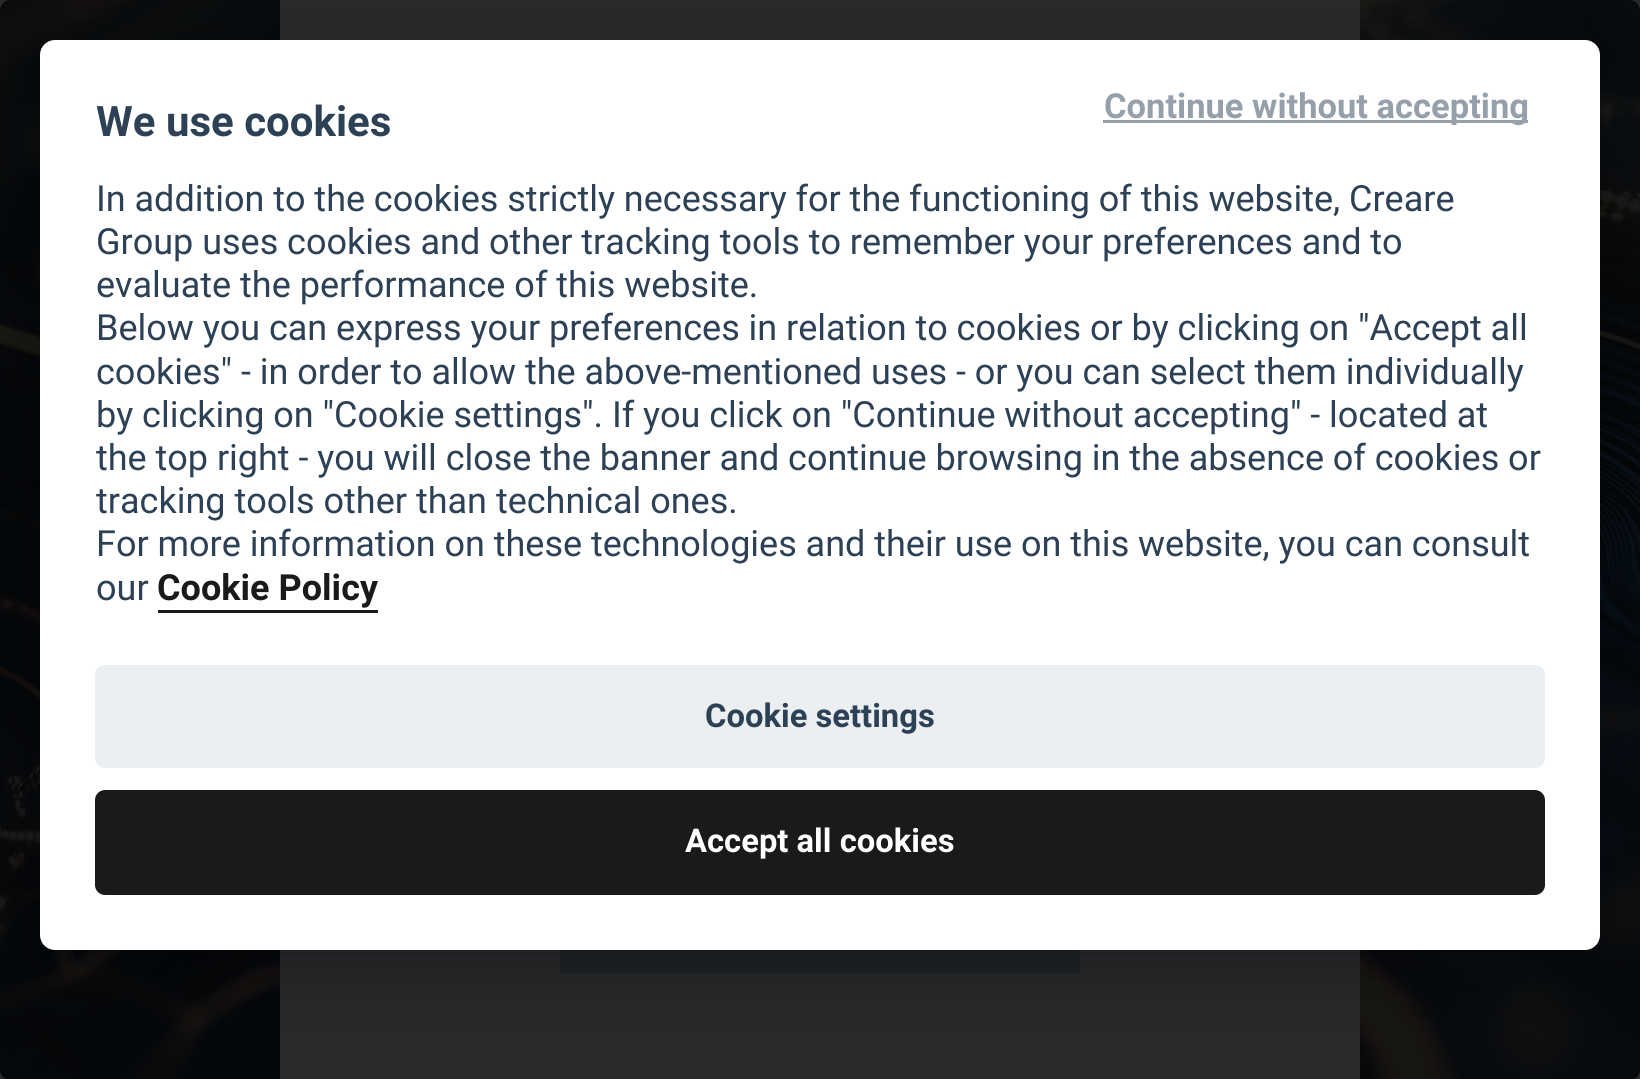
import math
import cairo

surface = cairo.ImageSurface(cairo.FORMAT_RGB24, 1640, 1079)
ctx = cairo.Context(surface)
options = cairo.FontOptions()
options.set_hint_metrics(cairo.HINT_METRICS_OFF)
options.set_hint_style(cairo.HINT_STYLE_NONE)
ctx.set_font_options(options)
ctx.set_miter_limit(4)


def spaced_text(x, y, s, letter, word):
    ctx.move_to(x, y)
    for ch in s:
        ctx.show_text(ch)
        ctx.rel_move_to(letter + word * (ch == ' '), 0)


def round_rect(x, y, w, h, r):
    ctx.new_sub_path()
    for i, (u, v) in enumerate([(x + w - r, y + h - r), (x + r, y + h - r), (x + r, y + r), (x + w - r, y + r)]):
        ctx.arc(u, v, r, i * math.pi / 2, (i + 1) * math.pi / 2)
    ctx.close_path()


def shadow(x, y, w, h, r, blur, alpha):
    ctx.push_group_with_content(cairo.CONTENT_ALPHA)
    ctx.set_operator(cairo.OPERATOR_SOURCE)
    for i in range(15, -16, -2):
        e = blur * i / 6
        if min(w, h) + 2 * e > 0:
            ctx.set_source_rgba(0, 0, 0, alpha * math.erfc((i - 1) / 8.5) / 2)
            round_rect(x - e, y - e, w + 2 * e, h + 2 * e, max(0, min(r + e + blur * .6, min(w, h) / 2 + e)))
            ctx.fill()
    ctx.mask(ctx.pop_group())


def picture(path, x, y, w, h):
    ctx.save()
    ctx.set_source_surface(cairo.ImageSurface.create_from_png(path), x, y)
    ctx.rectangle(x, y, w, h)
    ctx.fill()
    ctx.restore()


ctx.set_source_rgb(0.165, 0.169, 0.176)
ctx.paint()
picture("img1.png", 0, 0, 1640, 1079)
ctx.set_source_rgb(0.157, 0.165, 0.173)
ctx.rectangle(280, 0, 1080, 1079)
ctx.fill()
ctx.set_source_rgb(0.118, 0.137, 0.157)
ctx.rectangle(560, 950, 520, 23)
ctx.fill()
ctx.set_source_rgb(0.008, 0.008, 0.012)
shadow(40, 65, 1560, 910, 15, 37.5, 0.28)
ctx.set_source_rgb(1, 1, 1)
round_rect(40, 40, 1560, 910, 15)
ctx.fill()
ctx.select_font_face("Roboto", cairo.FONT_SLANT_NORMAL, cairo.FONT_WEIGHT_BOLD)
ctx.set_font_size(42)
ctx.set_source_rgb(0.176, 0.255, 0.337)
ctx.move_to(96, 136)
ctx.show_text("We use cookies")
ctx.set_source_rgb(0.588, 0.627, 0.671)
ctx.rectangle(1103, 120, 425, 3)
ctx.fill()
ctx.set_font_size(34.5)
ctx.move_to(1104, 118)
ctx.show_text("Continue without accepting")
ctx.select_font_face("Roboto")
ctx.set_font_size(36)
ctx.set_source_rgb(0.176, 0.255, 0.337)
spaced_text(96, 211, "In addition to the cookies strictly necessary for the functioning of this website, Creare", 0, -0.1)
spaced_text(96, 254, "Group uses cookies and other tracking tools to remember your preferences and to", 0, -0.1)
ctx.move_to(96, 297)
ctx.show_text("evaluate the performance of this website.")
spaced_text(96, 340, "Below you can express your preferences in relation to cookies or by clicking on \"Accept all", 0, -0.1)
spaced_text(96, 384, "cookies\" - in order to allow the above-mentioned uses - or you can select them individually", 0, -0.1)
spaced_text(96, 427, "by clicking on \"Cookie settings\". If you click on \"Continue without accepting\" - located at", 0, -0.1)
spaced_text(96, 470, "the top right - you will close the banner and continue browsing in the absence of cookies or", 0, -0.1)
ctx.move_to(96, 513)
ctx.show_text("tracking tools other than technical ones.")
spaced_text(96, 556, "For more information on these technologies and their use on this website, you can consult", 0, -0.1)
ctx.move_to(96, 600)
ctx.show_text("our")
ctx.select_font_face("Roboto", cairo.FONT_SLANT_NORMAL, cairo.FONT_WEIGHT_BOLD)
ctx.set_source_rgb(0.102, 0.102, 0.102)
ctx.move_to(157, 600)
ctx.show_text("Cookie Policy")
ctx.rectangle(158, 610, 220, 3)
ctx.fill()
ctx.set_source_rgb(0.918, 0.937, 0.949)
round_rect(95, 665, 1450, 103, 10)
ctx.fill()
ctx.set_font_size(32.75)
ctx.set_source_rgb(0.176, 0.255, 0.337)
ctx.move_to(705, 727)
ctx.show_text("Cookie settings")
ctx.set_source_rgb(0.102, 0.102, 0.102)
round_rect(95, 790, 1450, 105, 10)
ctx.fill()
ctx.set_source_rgb(1, 1, 1)
ctx.move_to(685, 852)
ctx.show_text("Accept all cookies")
surface.write_to_png("page.png")
